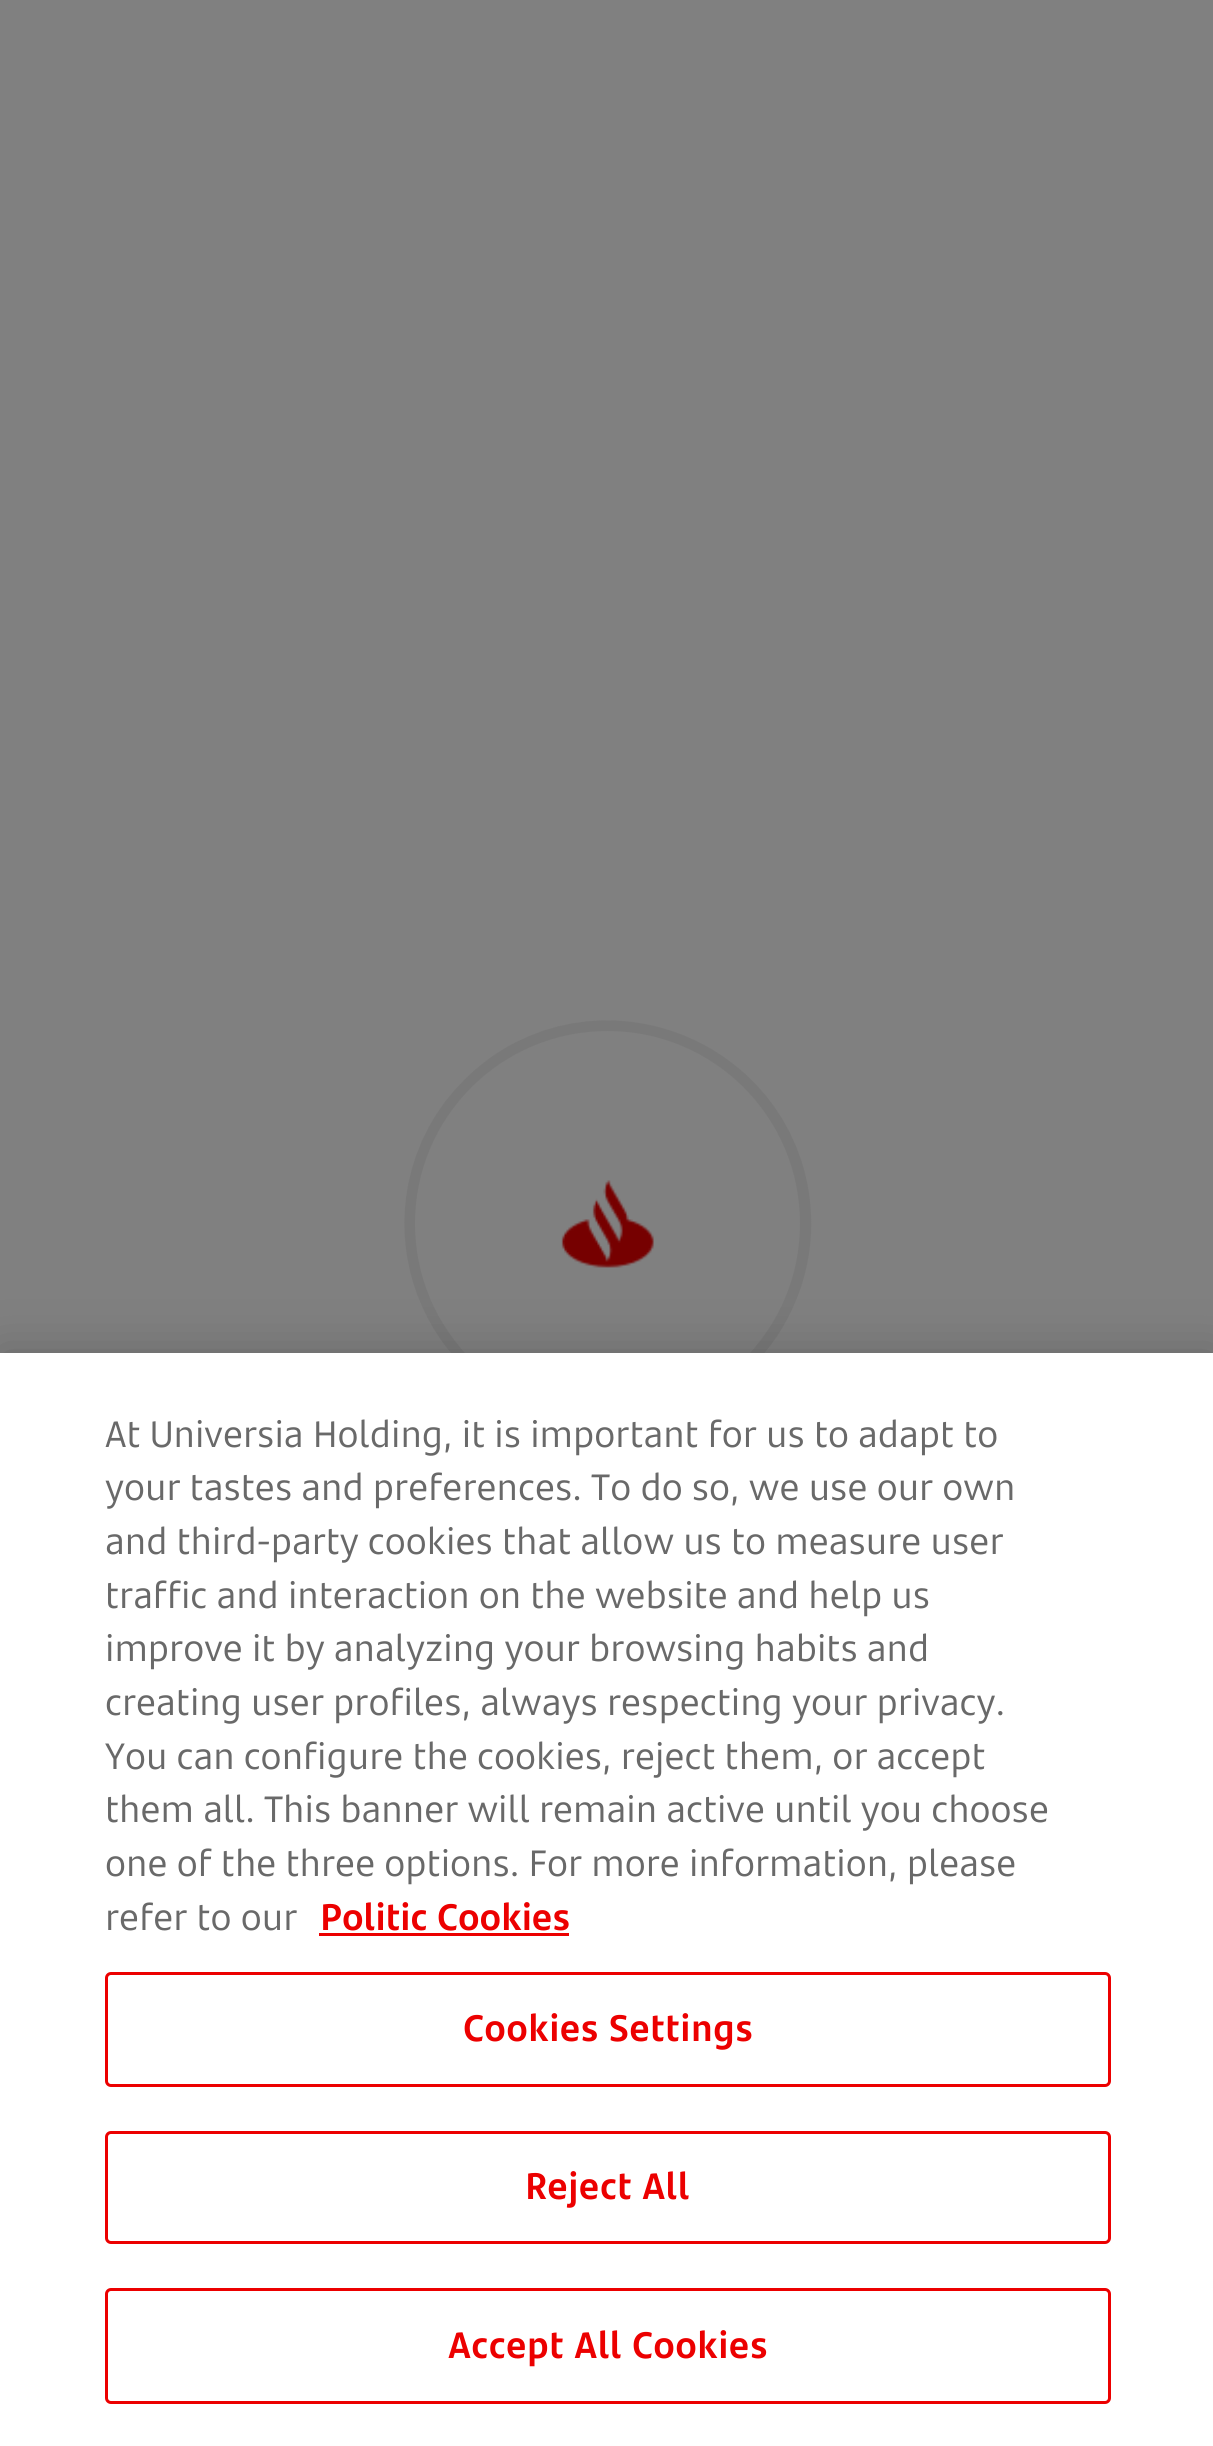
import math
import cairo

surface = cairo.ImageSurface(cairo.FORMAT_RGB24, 1213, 2446)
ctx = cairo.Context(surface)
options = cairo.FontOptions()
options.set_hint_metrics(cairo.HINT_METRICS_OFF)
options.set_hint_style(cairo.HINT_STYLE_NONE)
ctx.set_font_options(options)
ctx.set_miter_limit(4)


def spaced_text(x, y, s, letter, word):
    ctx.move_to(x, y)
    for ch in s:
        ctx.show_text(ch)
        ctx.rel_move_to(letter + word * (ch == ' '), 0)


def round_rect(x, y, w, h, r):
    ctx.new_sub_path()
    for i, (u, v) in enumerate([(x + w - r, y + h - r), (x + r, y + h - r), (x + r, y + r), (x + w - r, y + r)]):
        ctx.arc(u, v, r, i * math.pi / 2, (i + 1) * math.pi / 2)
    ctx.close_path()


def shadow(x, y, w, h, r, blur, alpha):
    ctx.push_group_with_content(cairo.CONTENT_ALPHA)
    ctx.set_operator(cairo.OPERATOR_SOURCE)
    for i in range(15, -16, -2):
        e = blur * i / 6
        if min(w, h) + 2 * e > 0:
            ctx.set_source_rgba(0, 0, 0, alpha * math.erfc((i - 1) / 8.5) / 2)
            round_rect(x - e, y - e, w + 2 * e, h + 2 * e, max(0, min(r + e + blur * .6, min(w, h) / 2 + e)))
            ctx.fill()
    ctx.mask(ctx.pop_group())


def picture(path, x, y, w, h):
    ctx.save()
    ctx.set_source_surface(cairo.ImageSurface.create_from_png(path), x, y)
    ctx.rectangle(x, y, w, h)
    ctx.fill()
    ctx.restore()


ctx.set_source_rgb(0.502, 0.502, 0.502)
ctx.paint()
ctx.new_path()
ctx.move_to(536, 1295.5)
ctx.curve_to(512, 1272, 501.5, 1237, 508, 1204)
ctx.curve_to(512, 1184, 521.5, 1166, 536, 1152)
ctx.curve_to(599.5, 1088, 709.5, 1133.5, 709.5, 1224)
ctx.curve_to(709.5, 1250.5, 698.5, 1276.5, 679.5, 1295.5)
ctx.set_source_rgb(0.475, 0.475, 0.475)
ctx.set_line_width(203.5)
ctx.stroke()
ctx.set_source_rgb(0.502, 0.502, 0.502)
ctx.arc(607.5, 1223.5, 192.5, 0, 2 * math.pi)
ctx.fill()
picture("img1.png", 561, 1180, 93, 88)
ctx.set_source_rgb(0, 0, 0)
shadow(0, 1353, 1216, 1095, 0, 25, 0.2)
ctx.set_source_rgb(1, 1, 1)
ctx.rectangle(0, 1353, 1213, 1093)
ctx.fill()
ctx.select_font_face("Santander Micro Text")
ctx.set_font_size(35.75)
ctx.set_source_rgb(0.412, 0.412, 0.412)
ctx.move_to(105, 1447)
ctx.show_text("At Universia Holding, it is important for us to adapt to")
ctx.move_to(105, 1500)
ctx.show_text("your tastes and preferences. To do so, we use our own")
ctx.move_to(105, 1554)
ctx.show_text("and third-party cookies that allow us to measure user")
ctx.move_to(105, 1608)
ctx.show_text("traffic and interaction on the website and help us")
ctx.move_to(105, 1661)
ctx.show_text("improve it by analyzing your browsing habits and")
ctx.move_to(105, 1715)
ctx.show_text("creating user profiles, always respecting your privacy.")
ctx.move_to(105, 1769)
ctx.show_text("You can configure the cookies, reject them, or accept")
ctx.move_to(105, 1822)
ctx.show_text("them all. This banner will remain active until you choose")
ctx.move_to(105, 1876)
ctx.show_text("one of the three options. For more information, please")
ctx.move_to(105, 1930)
ctx.show_text("refer to our")
ctx.select_font_face("Santander Micro Text", cairo.FONT_SLANT_NORMAL, cairo.FONT_WEIGHT_BOLD)
ctx.set_source_rgb(0.925, 0, 0)
ctx.move_to(320, 1930)
ctx.show_text("Politic Cookies")
ctx.rectangle(319, 1933, 250, 3)
ctx.fill()
round_rect(106.5, 1973.5, 1003, 112, 4.5)
ctx.set_line_width(3)
ctx.stroke()
spaced_text(463, 2041, "Cookies Settings", 0.4, 0)
round_rect(106.5, 2132.5, 1003, 110, 4.5)
ctx.stroke()
spaced_text(525, 2199, "Reject All", 0.4, 0)
round_rect(106.5, 2289.5, 1003, 113, 4.5)
ctx.stroke()
spaced_text(448, 2358, "Accept All Cookies", 0.4, 0)
surface.write_to_png("page.png")
